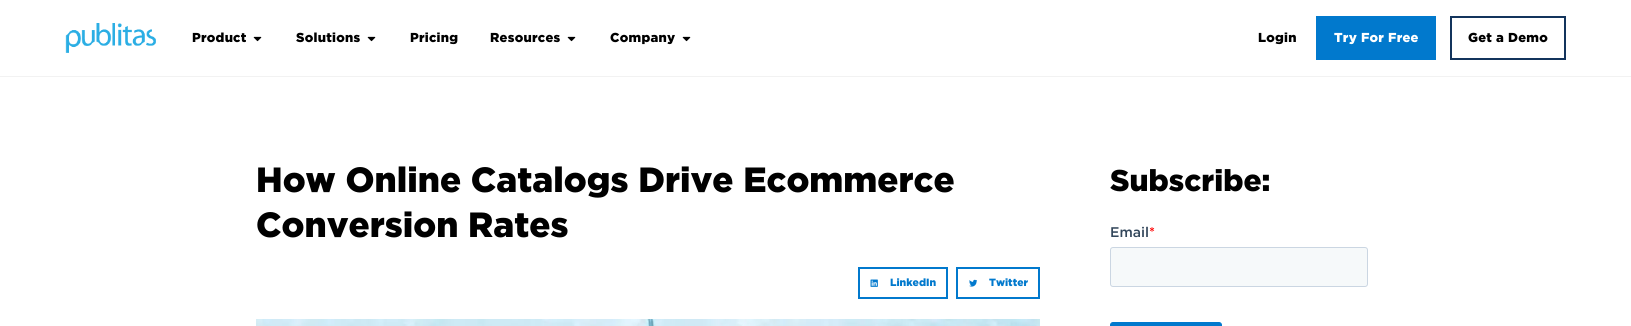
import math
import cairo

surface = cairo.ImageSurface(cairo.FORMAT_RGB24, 1631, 326)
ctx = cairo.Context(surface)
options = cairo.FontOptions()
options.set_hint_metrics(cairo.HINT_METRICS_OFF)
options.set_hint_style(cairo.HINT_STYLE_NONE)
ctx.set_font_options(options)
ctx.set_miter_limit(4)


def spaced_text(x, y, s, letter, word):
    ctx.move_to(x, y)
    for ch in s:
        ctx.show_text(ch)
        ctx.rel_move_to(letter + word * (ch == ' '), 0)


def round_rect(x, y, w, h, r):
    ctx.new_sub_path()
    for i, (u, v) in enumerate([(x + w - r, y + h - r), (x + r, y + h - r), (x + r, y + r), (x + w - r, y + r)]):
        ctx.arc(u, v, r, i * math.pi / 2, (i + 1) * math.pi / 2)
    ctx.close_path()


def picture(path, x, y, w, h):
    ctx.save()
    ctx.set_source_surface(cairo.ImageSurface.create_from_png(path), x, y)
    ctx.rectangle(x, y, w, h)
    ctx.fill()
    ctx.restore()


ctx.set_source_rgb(1, 1, 1)
ctx.paint()
ctx.set_source_rgb(0.949, 0.949, 0.949)
ctx.rectangle(0, 76, 1631, 1)
ctx.fill()
picture("img1.png", 65, 23, 91, 30)
ctx.select_font_face("Gotham Black")
ctx.set_font_size(13)
ctx.set_source_rgb(0, 0, 0)
spaced_text(192, 42, "Product", 0.25, 0)
picture("img2.png", 253, 36, 9, 6)
spaced_text(296, 42, "Solutions", 0.25, 0)
picture("img2.png", 367, 36, 9, 6)
spaced_text(410, 42, "Pricing", 0.25, 0)
spaced_text(490, 42, "Resources", 0.25, 0)
picture("img2.png", 567, 36, 9, 6)
spaced_text(610, 42, "Company", 0.25, 0)
picture("img2.png", 682, 36, 9, 6)
spaced_text(1258, 42, "Login", 0.25, 0)
ctx.set_source_rgb(0.004, 0.475, 0.804)
ctx.rectangle(1316, 16, 120, 44)
ctx.fill()
ctx.set_source_rgb(1, 1, 1)
spaced_text(1334, 42, "Try For Free", 0.25, 0)
ctx.rectangle(1451, 17, 114, 42)
ctx.set_source_rgb(0.075, 0.204, 0.361)
ctx.stroke()
ctx.set_source_rgb(0, 0, 0)
spaced_text(1468, 42, "Get a Demo", 0.25, 0)
ctx.set_font_size(35)
ctx.move_to(256, 192)
ctx.show_text("How Online Catalogs Drive Ecommerce")
ctx.move_to(256, 237)
ctx.show_text("Conversion Rates")
ctx.rectangle(859, 268, 88, 30)
ctx.set_source_rgb(0.004, 0.475, 0.804)
ctx.stroke()
picture("img3.png", 870, 279, 8, 8)
ctx.set_font_size(10.5)
ctx.move_to(890, 286)
ctx.show_text("LinkedIn")
ctx.rectangle(957, 268, 82, 30)
ctx.stroke()
picture("img4.png", 969, 279, 8, 8)
ctx.move_to(989, 286)
ctx.show_text("Twitter")
picture("img5.png", 256, 319, 784, 7)
ctx.set_font_size(30)
ctx.set_source_rgb(0, 0, 0)
ctx.move_to(1110, 191)
ctx.show_text("Subscribe:")
ctx.select_font_face("Gotham Medium")
ctx.set_font_size(14)
ctx.set_source_rgb(0.2, 0.278, 0.357)
ctx.move_to(1110, 237)
ctx.show_text("Email")
ctx.set_source_rgb(1, 0, 0)
ctx.move_to(1149, 237)
ctx.show_text("*")
ctx.set_source_rgb(0.961, 0.973, 0.98)
round_rect(1110.5, 247.5, 257, 39, 2.5)
ctx.fill_preserve()
ctx.set_source_rgb(0.796, 0.839, 0.886)
ctx.set_line_width(1)
ctx.stroke()
ctx.set_source_rgb(0.004, 0.475, 0.804)
round_rect(1110.5, 322.5, 111, 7, 2.5)
ctx.fill_preserve()
ctx.stroke()
surface.write_to_png("page.png")
